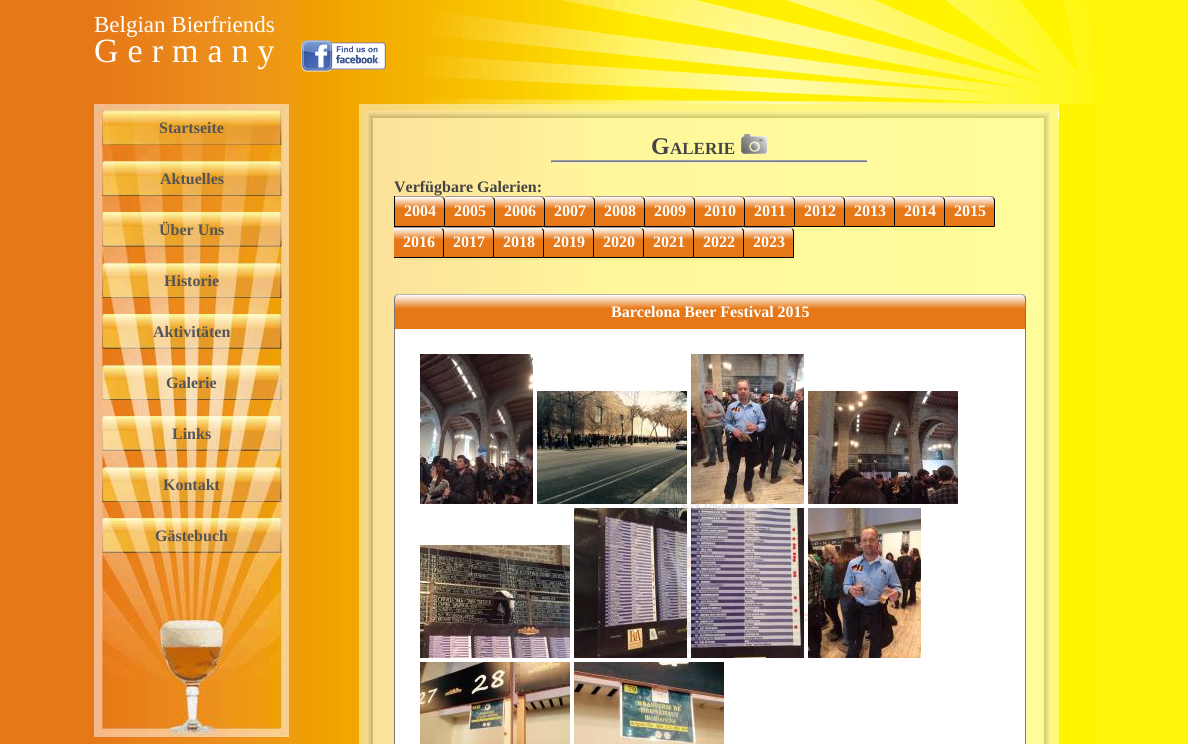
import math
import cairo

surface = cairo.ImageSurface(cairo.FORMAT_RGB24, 1188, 744)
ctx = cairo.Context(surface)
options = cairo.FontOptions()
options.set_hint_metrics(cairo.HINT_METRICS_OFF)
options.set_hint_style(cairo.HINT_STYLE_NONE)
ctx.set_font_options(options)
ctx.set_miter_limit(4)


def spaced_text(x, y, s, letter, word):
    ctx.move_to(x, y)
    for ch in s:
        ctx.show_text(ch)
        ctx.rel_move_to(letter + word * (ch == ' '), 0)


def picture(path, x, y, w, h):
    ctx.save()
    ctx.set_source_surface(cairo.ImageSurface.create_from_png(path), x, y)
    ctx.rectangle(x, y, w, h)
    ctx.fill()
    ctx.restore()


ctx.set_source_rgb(1, 1, 1)
ctx.paint()
picture("img1.png", 0, 0, 1188, 744)
picture("img2.png", 425, 0, 669, 104)
ctx.select_font_face("Liberation Serif")
ctx.set_font_size(23)
ctx.set_source_rgb(1, 1, 1)
ctx.move_to(94, 32)
ctx.show_text("Belgian Bierfriends")
ctx.set_font_size(34)
spaced_text(94, 62, "Germany", 9, 0)
picture("img3.png", 301, 40, 85, 32)
picture("img4.png", 94, 104, 195, 633)
picture("img5.png", 101, 110, 181, 35)
ctx.select_font_face("Liberation Serif", cairo.FONT_SLANT_NORMAL, cairo.FONT_WEIGHT_BOLD)
ctx.set_font_size(16)
ctx.set_source_rgb(0.333, 0.333, 0.333)
ctx.move_to(159, 133)
ctx.show_text("Startseite")
picture("img6.png", 101, 161, 181, 35)
ctx.move_to(160, 184)
ctx.show_text("Aktuelles")
picture("img7.png", 101, 212, 181, 35)
ctx.move_to(159, 235)
ctx.show_text("Über Uns")
picture("img8.png", 101, 263, 181, 35)
ctx.move_to(164, 286)
ctx.show_text("Historie")
picture("img9.png", 101, 314, 181, 35)
ctx.move_to(153, 337)
ctx.show_text("Aktivitäten")
picture("img10.png", 101, 365, 181, 35)
ctx.move_to(166, 388)
ctx.show_text("Galerie")
picture("img11.png", 101, 416, 181, 35)
ctx.move_to(172, 439)
ctx.show_text("Links")
picture("img12.png", 101, 467, 181, 35)
ctx.move_to(163, 490)
ctx.show_text("Kontakt")
picture("img13.png", 101, 518, 181, 35)
ctx.move_to(155, 541)
ctx.show_text("Gästebuch")
picture("img14.png", 359, 104, 700, 14)
picture("img15.png", 359, 118, 700, 626)
ctx.set_font_size(24)
ctx.set_source_rgb(0.267, 0.267, 0.267)
ctx.move_to(651, 154)
ctx.show_text("G")
ctx.set_font_size(17)
ctx.move_to(670, 154)
ctx.show_text("ALERIE")
picture("img16.png", 741, 134, 26, 20)
ctx.set_source_rgb(0.467, 0.467, 0.467)
ctx.rectangle(551, 161, 317, 1)
ctx.fill()
ctx.set_source_rgb(0.624, 0.624, 0.624)
ctx.rectangle(551, 160, 317, 1)
ctx.fill()
ctx.set_source_rgb(0.933, 0.933, 0.933)
ctx.rectangle(867, 160, 1, 3)
ctx.fill()
ctx.rectangle(551, 162, 317, 1)
ctx.fill()
ctx.set_source_rgb(0.624, 0.624, 0.624)
ctx.rectangle(551, 160, 1, 3)
ctx.fill()
ctx.set_font_size(16)
ctx.set_source_rgb(0.267, 0.267, 0.267)
ctx.move_to(394, 192)
ctx.show_text("Verfügbare Galerien:")
ctx.set_source_rgb(0, 0, 0)
ctx.rectangle(394, 196, 1, 31)
ctx.fill()
ctx.save()
ctx.new_path()
ctx.move_to(395, 196)
ctx.line_to(440, 196)
ctx.curve_to(443, 196, 445, 198, 445, 201)
ctx.line_to(445, 227)
ctx.line_to(395, 227)
ctx.close_path()
ctx.clip()
gradient = cairo.LinearGradient(420, 197, 420, 226)
gradient.add_color_stop_rgba(0, 1, 1, 1, 1)
gradient.add_color_stop_rgba(0.4, 0.906, 0.471, 0.09, 1)
ctx.set_source(gradient)
ctx.rectangle(395, 197, 50, 29)
ctx.fill()
ctx.restore()
ctx.set_source_rgb(0.667, 0.604, 0.604)
ctx.new_path()
ctx.move_to(395, 196)
ctx.line_to(395, 197)
ctx.line_to(440, 197)
ctx.curve_to(441, 197, 442, 198, 443, 198)
ctx.line_to(444, 197)
ctx.curve_to(443, 196, 442, 196, 440, 196)
ctx.close_path()
ctx.fill()
ctx.set_source_rgb(0, 0, 0)
ctx.new_path()
ctx.move_to(444, 226)
ctx.line_to(444, 201)
ctx.curve_to(444, 200, 443.5, 199, 443, 198)
ctx.line_to(443.5, 197.5)
ctx.curve_to(444.5, 198, 445, 199.5, 445, 201)
ctx.line_to(445, 227)
ctx.close_path()
ctx.fill()
ctx.new_path()
ctx.move_to(445, 227)
ctx.line_to(444, 226)
ctx.line_to(395, 226)
ctx.line_to(395, 227)
ctx.close_path()
ctx.fill()
ctx.set_source_rgb(1, 1, 1)
ctx.move_to(404, 216)
ctx.show_text("2004")
ctx.save()
ctx.new_path()
ctx.move_to(445, 196)
ctx.line_to(490, 196)
ctx.curve_to(493, 196, 495, 198, 495, 201)
ctx.line_to(495, 227)
ctx.line_to(445, 227)
ctx.close_path()
ctx.clip()
gradient = cairo.LinearGradient(470, 197, 470, 226)
gradient.add_color_stop_rgba(0, 1, 1, 1, 1)
gradient.add_color_stop_rgba(0.4, 0.906, 0.471, 0.09, 1)
ctx.set_source(gradient)
ctx.rectangle(445, 197, 50, 29)
ctx.fill()
ctx.restore()
ctx.set_source_rgb(0.667, 0.604, 0.604)
ctx.new_path()
ctx.move_to(445, 196)
ctx.line_to(445, 197)
ctx.line_to(490, 197)
ctx.curve_to(491, 197, 492, 198, 493, 198)
ctx.line_to(494, 197)
ctx.curve_to(493, 196, 492, 196, 490, 196)
ctx.close_path()
ctx.fill()
ctx.set_source_rgb(0, 0, 0)
ctx.new_path()
ctx.move_to(494, 226)
ctx.line_to(494, 201)
ctx.curve_to(494, 200, 493.5, 199, 493, 198)
ctx.line_to(493.5, 197.5)
ctx.curve_to(494.5, 198, 495, 199.5, 495, 201)
ctx.line_to(495, 227)
ctx.close_path()
ctx.fill()
ctx.new_path()
ctx.move_to(495, 227)
ctx.line_to(494, 226)
ctx.line_to(445, 226)
ctx.line_to(445, 227)
ctx.close_path()
ctx.fill()
ctx.set_source_rgb(1, 1, 1)
ctx.move_to(454, 216)
ctx.show_text("2005")
ctx.save()
ctx.new_path()
ctx.move_to(495, 196)
ctx.line_to(540, 196)
ctx.curve_to(543, 196, 545, 198, 545, 201)
ctx.line_to(545, 227)
ctx.line_to(495, 227)
ctx.close_path()
ctx.clip()
gradient = cairo.LinearGradient(520, 197, 520, 226)
gradient.add_color_stop_rgba(0, 1, 1, 1, 1)
gradient.add_color_stop_rgba(0.4, 0.906, 0.471, 0.09, 1)
ctx.set_source(gradient)
ctx.rectangle(495, 197, 50, 29)
ctx.fill()
ctx.restore()
ctx.set_source_rgb(0.667, 0.604, 0.604)
ctx.new_path()
ctx.move_to(495, 196)
ctx.line_to(495, 197)
ctx.line_to(540, 197)
ctx.curve_to(541, 197, 542, 198, 543, 198)
ctx.line_to(544, 197)
ctx.curve_to(543, 196, 542, 196, 540, 196)
ctx.close_path()
ctx.fill()
ctx.set_source_rgb(0, 0, 0)
ctx.new_path()
ctx.move_to(544, 226)
ctx.line_to(544, 201)
ctx.curve_to(544, 200, 543.5, 199, 543, 198)
ctx.line_to(543.5, 197.5)
ctx.curve_to(544.5, 198, 545, 199.5, 545, 201)
ctx.line_to(545, 227)
ctx.close_path()
ctx.fill()
ctx.new_path()
ctx.move_to(545, 227)
ctx.line_to(544, 226)
ctx.line_to(495, 226)
ctx.line_to(495, 227)
ctx.close_path()
ctx.fill()
ctx.set_source_rgb(1, 1, 1)
ctx.move_to(504, 216)
ctx.show_text("2006")
ctx.save()
ctx.new_path()
ctx.move_to(545, 196)
ctx.line_to(590, 196)
ctx.curve_to(593, 196, 595, 198, 595, 201)
ctx.line_to(595, 227)
ctx.line_to(545, 227)
ctx.close_path()
ctx.clip()
gradient = cairo.LinearGradient(570, 197, 570, 226)
gradient.add_color_stop_rgba(0, 1, 1, 1, 1)
gradient.add_color_stop_rgba(0.4, 0.906, 0.471, 0.09, 1)
ctx.set_source(gradient)
ctx.rectangle(545, 197, 50, 29)
ctx.fill()
ctx.restore()
ctx.set_source_rgb(0.667, 0.604, 0.604)
ctx.new_path()
ctx.move_to(545, 196)
ctx.line_to(545, 197)
ctx.line_to(590, 197)
ctx.curve_to(591, 197, 592, 198, 593, 198)
ctx.line_to(594, 197)
ctx.curve_to(593, 196, 592, 196, 590, 196)
ctx.close_path()
ctx.fill()
ctx.set_source_rgb(0, 0, 0)
ctx.new_path()
ctx.move_to(594, 226)
ctx.line_to(594, 201)
ctx.curve_to(594, 200, 593.5, 199, 593, 198)
ctx.line_to(593.5, 197.5)
ctx.curve_to(594.5, 198, 595, 199.5, 595, 201)
ctx.line_to(595, 227)
ctx.close_path()
ctx.fill()
ctx.new_path()
ctx.move_to(595, 227)
ctx.line_to(594, 226)
ctx.line_to(545, 226)
ctx.line_to(545, 227)
ctx.close_path()
ctx.fill()
ctx.set_source_rgb(1, 1, 1)
ctx.move_to(554, 216)
ctx.show_text("2007")
ctx.save()
ctx.new_path()
ctx.move_to(595, 196)
ctx.line_to(640, 196)
ctx.curve_to(643, 196, 645, 198, 645, 201)
ctx.line_to(645, 227)
ctx.line_to(595, 227)
ctx.close_path()
ctx.clip()
gradient = cairo.LinearGradient(620, 197, 620, 226)
gradient.add_color_stop_rgba(0, 1, 1, 1, 1)
gradient.add_color_stop_rgba(0.4, 0.906, 0.471, 0.09, 1)
ctx.set_source(gradient)
ctx.rectangle(595, 197, 50, 29)
ctx.fill()
ctx.restore()
ctx.set_source_rgb(0.667, 0.604, 0.604)
ctx.new_path()
ctx.move_to(595, 196)
ctx.line_to(595, 197)
ctx.line_to(640, 197)
ctx.curve_to(641, 197, 642, 198, 643, 198)
ctx.line_to(644, 197)
ctx.curve_to(643, 196, 642, 196, 640, 196)
ctx.close_path()
ctx.fill()
ctx.set_source_rgb(0, 0, 0)
ctx.new_path()
ctx.move_to(644, 226)
ctx.line_to(644, 201)
ctx.curve_to(644, 200, 643.5, 199, 643, 198)
ctx.line_to(643.5, 197.5)
ctx.curve_to(644.5, 198, 645, 199.5, 645, 201)
ctx.line_to(645, 227)
ctx.close_path()
ctx.fill()
ctx.new_path()
ctx.move_to(645, 227)
ctx.line_to(644, 226)
ctx.line_to(595, 226)
ctx.line_to(595, 227)
ctx.close_path()
ctx.fill()
ctx.set_source_rgb(1, 1, 1)
ctx.move_to(604, 216)
ctx.show_text("2008")
ctx.save()
ctx.new_path()
ctx.move_to(645, 196)
ctx.line_to(690, 196)
ctx.curve_to(693, 196, 695, 198, 695, 201)
ctx.line_to(695, 227)
ctx.line_to(645, 227)
ctx.close_path()
ctx.clip()
gradient = cairo.LinearGradient(670, 197, 670, 226)
gradient.add_color_stop_rgba(0, 1, 1, 1, 1)
gradient.add_color_stop_rgba(0.4, 0.906, 0.471, 0.09, 1)
ctx.set_source(gradient)
ctx.rectangle(645, 197, 50, 29)
ctx.fill()
ctx.restore()
ctx.set_source_rgb(0.667, 0.604, 0.604)
ctx.new_path()
ctx.move_to(645, 196)
ctx.line_to(645, 197)
ctx.line_to(690, 197)
ctx.curve_to(691, 197, 692, 198, 693, 198)
ctx.line_to(694, 197)
ctx.curve_to(693, 196, 692, 196, 690, 196)
ctx.close_path()
ctx.fill()
ctx.set_source_rgb(0, 0, 0)
ctx.new_path()
ctx.move_to(694, 226)
ctx.line_to(694, 201)
ctx.curve_to(694, 200, 693.5, 199, 693, 198)
ctx.line_to(693.5, 197.5)
ctx.curve_to(694.5, 198, 695, 199.5, 695, 201)
ctx.line_to(695, 227)
ctx.close_path()
ctx.fill()
ctx.new_path()
ctx.move_to(695, 227)
ctx.line_to(694, 226)
ctx.line_to(645, 226)
ctx.line_to(645, 227)
ctx.close_path()
ctx.fill()
ctx.set_source_rgb(1, 1, 1)
ctx.move_to(654, 216)
ctx.show_text("2009")
ctx.save()
ctx.new_path()
ctx.move_to(695, 196)
ctx.line_to(740, 196)
ctx.curve_to(743, 196, 745, 198, 745, 201)
ctx.line_to(745, 227)
ctx.line_to(695, 227)
ctx.close_path()
ctx.clip()
gradient = cairo.LinearGradient(720, 197, 720, 226)
gradient.add_color_stop_rgba(0, 1, 1, 1, 1)
gradient.add_color_stop_rgba(0.4, 0.906, 0.471, 0.09, 1)
ctx.set_source(gradient)
ctx.rectangle(695, 197, 50, 29)
ctx.fill()
ctx.restore()
ctx.set_source_rgb(0.667, 0.604, 0.604)
ctx.new_path()
ctx.move_to(695, 196)
ctx.line_to(695, 197)
ctx.line_to(740, 197)
ctx.curve_to(741, 197, 742, 198, 743, 198)
ctx.line_to(744, 197)
ctx.curve_to(743, 196, 742, 196, 740, 196)
ctx.close_path()
ctx.fill()
ctx.set_source_rgb(0, 0, 0)
ctx.new_path()
ctx.move_to(744, 226)
ctx.line_to(744, 201)
ctx.curve_to(744, 200, 743.5, 199, 743, 198)
ctx.line_to(743.5, 197.5)
ctx.curve_to(744.5, 198, 745, 199.5, 745, 201)
ctx.line_to(745, 227)
ctx.close_path()
ctx.fill()
ctx.new_path()
ctx.move_to(745, 227)
ctx.line_to(744, 226)
ctx.line_to(695, 226)
ctx.line_to(695, 227)
ctx.close_path()
ctx.fill()
ctx.set_source_rgb(1, 1, 1)
ctx.move_to(704, 216)
ctx.show_text("2010")
ctx.save()
ctx.new_path()
ctx.move_to(745, 196)
ctx.line_to(790, 196)
ctx.curve_to(793, 196, 795, 198, 795, 201)
ctx.line_to(795, 227)
ctx.line_to(745, 227)
ctx.close_path()
ctx.clip()
gradient = cairo.LinearGradient(770, 197, 770, 226)
gradient.add_color_stop_rgba(0, 1, 1, 1, 1)
gradient.add_color_stop_rgba(0.4, 0.906, 0.471, 0.09, 1)
ctx.set_source(gradient)
ctx.rectangle(745, 197, 50, 29)
ctx.fill()
ctx.restore()
ctx.set_source_rgb(0.667, 0.604, 0.604)
ctx.new_path()
ctx.move_to(745, 196)
ctx.line_to(745, 197)
ctx.line_to(790, 197)
ctx.curve_to(791, 197, 792, 198, 793, 198)
ctx.line_to(794, 197)
ctx.curve_to(793, 196, 792, 196, 790, 196)
ctx.close_path()
ctx.fill()
ctx.set_source_rgb(0, 0, 0)
ctx.new_path()
ctx.move_to(794, 226)
ctx.line_to(794, 201)
ctx.curve_to(794, 200, 793.5, 199, 793, 198)
ctx.line_to(793.5, 197.5)
ctx.curve_to(794.5, 198, 795, 199.5, 795, 201)
ctx.line_to(795, 227)
ctx.close_path()
ctx.fill()
ctx.new_path()
ctx.move_to(795, 227)
ctx.line_to(794, 226)
ctx.line_to(745, 226)
ctx.line_to(745, 227)
ctx.close_path()
ctx.fill()
ctx.set_source_rgb(1, 1, 1)
ctx.move_to(754, 216)
ctx.show_text("2011")
ctx.save()
ctx.new_path()
ctx.move_to(795, 196)
ctx.line_to(840, 196)
ctx.curve_to(843, 196, 845, 198, 845, 201)
ctx.line_to(845, 227)
ctx.line_to(795, 227)
ctx.close_path()
ctx.clip()
gradient = cairo.LinearGradient(820, 197, 820, 226)
gradient.add_color_stop_rgba(0, 1, 1, 1, 1)
gradient.add_color_stop_rgba(0.4, 0.906, 0.471, 0.09, 1)
ctx.set_source(gradient)
ctx.rectangle(795, 197, 50, 29)
ctx.fill()
ctx.restore()
ctx.set_source_rgb(0.667, 0.604, 0.604)
ctx.new_path()
ctx.move_to(795, 196)
ctx.line_to(795, 197)
ctx.line_to(840, 197)
ctx.curve_to(841, 197, 842, 198, 843, 198)
ctx.line_to(844, 197)
ctx.curve_to(843, 196, 842, 196, 840, 196)
ctx.close_path()
ctx.fill()
ctx.set_source_rgb(0, 0, 0)
ctx.new_path()
ctx.move_to(844, 226)
ctx.line_to(844, 201)
ctx.curve_to(844, 200, 843.5, 199, 843, 198)
ctx.line_to(843.5, 197.5)
ctx.curve_to(844.5, 198, 845, 199.5, 845, 201)
ctx.line_to(845, 227)
ctx.close_path()
ctx.fill()
ctx.new_path()
ctx.move_to(845, 227)
ctx.line_to(844, 226)
ctx.line_to(795, 226)
ctx.line_to(795, 227)
ctx.close_path()
ctx.fill()
ctx.set_source_rgb(1, 1, 1)
ctx.move_to(804, 216)
ctx.show_text("2012")
ctx.save()
ctx.new_path()
ctx.move_to(845, 196)
ctx.line_to(890, 196)
ctx.curve_to(893, 196, 895, 198, 895, 201)
ctx.line_to(895, 227)
ctx.line_to(845, 227)
ctx.close_path()
ctx.clip()
gradient = cairo.LinearGradient(870, 197, 870, 226)
gradient.add_color_stop_rgba(0, 1, 1, 1, 1)
gradient.add_color_stop_rgba(0.4, 0.906, 0.471, 0.09, 1)
ctx.set_source(gradient)
ctx.rectangle(845, 197, 50, 29)
ctx.fill()
ctx.restore()
ctx.set_source_rgb(0.667, 0.604, 0.604)
ctx.new_path()
ctx.move_to(845, 196)
ctx.line_to(845, 197)
ctx.line_to(890, 197)
ctx.curve_to(891, 197, 892, 198, 893, 198)
ctx.line_to(894, 197)
ctx.curve_to(893, 196, 892, 196, 890, 196)
ctx.close_path()
ctx.fill()
ctx.set_source_rgb(0, 0, 0)
ctx.new_path()
ctx.move_to(894, 226)
ctx.line_to(894, 201)
ctx.curve_to(894, 200, 893.5, 199, 893, 198)
ctx.line_to(893.5, 197.5)
ctx.curve_to(894.5, 198, 895, 199.5, 895, 201)
ctx.line_to(895, 227)
ctx.close_path()
ctx.fill()
ctx.new_path()
ctx.move_to(895, 227)
ctx.line_to(894, 226)
ctx.line_to(845, 226)
ctx.line_to(845, 227)
ctx.close_path()
ctx.fill()
ctx.set_source_rgb(1, 1, 1)
ctx.move_to(854, 216)
ctx.show_text("2013")
ctx.save()
ctx.new_path()
ctx.move_to(895, 196)
ctx.line_to(940, 196)
ctx.curve_to(943, 196, 945, 198, 945, 201)
ctx.line_to(945, 227)
ctx.line_to(895, 227)
ctx.close_path()
ctx.clip()
gradient = cairo.LinearGradient(920, 197, 920, 226)
gradient.add_color_stop_rgba(0, 1, 1, 1, 1)
gradient.add_color_stop_rgba(0.4, 0.906, 0.471, 0.09, 1)
ctx.set_source(gradient)
ctx.rectangle(895, 197, 50, 29)
ctx.fill()
ctx.restore()
ctx.set_source_rgb(0.667, 0.604, 0.604)
ctx.new_path()
ctx.move_to(895, 196)
ctx.line_to(895, 197)
ctx.line_to(940, 197)
ctx.curve_to(941, 197, 942, 198, 943, 198)
ctx.line_to(944, 197)
ctx.curve_to(943, 196, 942, 196, 940, 196)
ctx.close_path()
ctx.fill()
ctx.set_source_rgb(0, 0, 0)
ctx.new_path()
ctx.move_to(944, 226)
ctx.line_to(944, 201)
ctx.curve_to(944, 200, 943.5, 199, 943, 198)
ctx.line_to(943.5, 197.5)
ctx.curve_to(944.5, 198, 945, 199.5, 945, 201)
ctx.line_to(945, 227)
ctx.close_path()
ctx.fill()
ctx.new_path()
ctx.move_to(945, 227)
ctx.line_to(944, 226)
ctx.line_to(895, 226)
ctx.line_to(895, 227)
ctx.close_path()
ctx.fill()
ctx.set_source_rgb(1, 1, 1)
ctx.move_to(904, 216)
ctx.show_text("2014")
ctx.save()
ctx.new_path()
ctx.move_to(945, 196)
ctx.line_to(990, 196)
ctx.curve_to(993, 196, 995, 198, 995, 201)
ctx.line_to(995, 227)
ctx.line_to(945, 227)
ctx.close_path()
ctx.clip()
gradient = cairo.LinearGradient(970, 197, 970, 226)
gradient.add_color_stop_rgba(0, 1, 1, 1, 1)
gradient.add_color_stop_rgba(0.4, 0.906, 0.471, 0.09, 1)
ctx.set_source(gradient)
ctx.rectangle(945, 197, 50, 29)
ctx.fill()
ctx.restore()
ctx.set_source_rgb(0.667, 0.604, 0.604)
ctx.new_path()
ctx.move_to(945, 196)
ctx.line_to(945, 197)
ctx.line_to(990, 197)
ctx.curve_to(991, 197, 992, 198, 993, 198)
ctx.line_to(994, 197)
ctx.curve_to(993, 196, 992, 196, 990, 196)
ctx.close_path()
ctx.fill()
ctx.set_source_rgb(0, 0, 0)
ctx.new_path()
ctx.move_to(994, 226)
ctx.line_to(994, 201)
ctx.curve_to(994, 200, 993.5, 199, 993, 198)
ctx.line_to(993.5, 197.5)
ctx.curve_to(994.5, 198, 995, 199.5, 995, 201)
ctx.line_to(995, 227)
ctx.close_path()
ctx.fill()
ctx.new_path()
ctx.move_to(995, 227)
ctx.line_to(994, 226)
ctx.line_to(945, 226)
ctx.line_to(945, 227)
ctx.close_path()
ctx.fill()
ctx.set_source_rgb(1, 1, 1)
ctx.move_to(954, 216)
ctx.show_text("2015")
ctx.save()
ctx.new_path()
ctx.move_to(394, 227)
ctx.line_to(439, 227)
ctx.curve_to(442, 227, 444, 229, 444, 232)
ctx.line_to(444, 258)
ctx.line_to(394, 258)
ctx.close_path()
ctx.clip()
gradient = cairo.LinearGradient(419, 228, 419, 257)
gradient.add_color_stop_rgba(0, 1, 1, 1, 1)
gradient.add_color_stop_rgba(0.4, 0.906, 0.471, 0.09, 1)
ctx.set_source(gradient)
ctx.rectangle(394, 228, 50, 29)
ctx.fill()
ctx.restore()
ctx.set_source_rgb(0.667, 0.604, 0.604)
ctx.new_path()
ctx.move_to(394, 227)
ctx.line_to(394, 228)
ctx.line_to(439, 228)
ctx.curve_to(440, 228, 441, 228, 442, 229)
ctx.line_to(443, 228)
ctx.curve_to(442, 228, 440, 227, 439, 227)
ctx.close_path()
ctx.fill()
ctx.set_source_rgb(0, 0, 0)
ctx.new_path()
ctx.move_to(443, 257)
ctx.line_to(443, 232)
ctx.curve_to(443, 231, 442.5, 230, 442, 229)
ctx.line_to(442.5, 228.5)
ctx.curve_to(443.5, 229, 444, 230.5, 444, 232)
ctx.line_to(444, 258)
ctx.close_path()
ctx.fill()
ctx.new_path()
ctx.move_to(444, 258)
ctx.line_to(443, 257)
ctx.line_to(394, 257)
ctx.line_to(394, 258)
ctx.close_path()
ctx.fill()
ctx.set_source_rgb(1, 1, 1)
ctx.move_to(403, 247)
ctx.show_text("2016")
ctx.save()
ctx.new_path()
ctx.move_to(444, 227)
ctx.line_to(489, 227)
ctx.curve_to(492, 227, 494, 229, 494, 232)
ctx.line_to(494, 258)
ctx.line_to(444, 258)
ctx.close_path()
ctx.clip()
gradient = cairo.LinearGradient(469, 228, 469, 257)
gradient.add_color_stop_rgba(0, 1, 1, 1, 1)
gradient.add_color_stop_rgba(0.4, 0.906, 0.471, 0.09, 1)
ctx.set_source(gradient)
ctx.rectangle(444, 228, 50, 29)
ctx.fill()
ctx.restore()
ctx.set_source_rgb(0.667, 0.604, 0.604)
ctx.new_path()
ctx.move_to(444, 227)
ctx.line_to(444, 228)
ctx.line_to(489, 228)
ctx.curve_to(490, 228, 491, 228, 492, 229)
ctx.line_to(493, 228)
ctx.curve_to(492, 228, 490, 227, 489, 227)
ctx.close_path()
ctx.fill()
ctx.set_source_rgb(0, 0, 0)
ctx.new_path()
ctx.move_to(493, 257)
ctx.line_to(493, 232)
ctx.curve_to(493, 231, 492.5, 230, 492, 229)
ctx.line_to(492.5, 228.5)
ctx.curve_to(493.5, 229, 494, 230.5, 494, 232)
ctx.line_to(494, 258)
ctx.close_path()
ctx.fill()
ctx.new_path()
ctx.move_to(494, 258)
ctx.line_to(493, 257)
ctx.line_to(444, 257)
ctx.line_to(444, 258)
ctx.close_path()
ctx.fill()
ctx.set_source_rgb(1, 1, 1)
ctx.move_to(453, 247)
ctx.show_text("2017")
ctx.save()
ctx.new_path()
ctx.move_to(494, 227)
ctx.line_to(539, 227)
ctx.curve_to(542, 227, 544, 229, 544, 232)
ctx.line_to(544, 258)
ctx.line_to(494, 258)
ctx.close_path()
ctx.clip()
gradient = cairo.LinearGradient(519, 228, 519, 257)
gradient.add_color_stop_rgba(0, 1, 1, 1, 1)
gradient.add_color_stop_rgba(0.4, 0.906, 0.471, 0.09, 1)
ctx.set_source(gradient)
ctx.rectangle(494, 228, 50, 29)
ctx.fill()
ctx.restore()
ctx.set_source_rgb(0.667, 0.604, 0.604)
ctx.new_path()
ctx.move_to(494, 227)
ctx.line_to(494, 228)
ctx.line_to(539, 228)
ctx.curve_to(540, 228, 541, 228, 542, 229)
ctx.line_to(543, 228)
ctx.curve_to(542, 228, 540, 227, 539, 227)
ctx.close_path()
ctx.fill()
ctx.set_source_rgb(0, 0, 0)
ctx.new_path()
ctx.move_to(543, 257)
ctx.line_to(543, 232)
ctx.curve_to(543, 231, 542.5, 230, 542, 229)
ctx.line_to(542.5, 228.5)
ctx.curve_to(543.5, 229, 544, 230.5, 544, 232)
ctx.line_to(544, 258)
ctx.close_path()
ctx.fill()
ctx.new_path()
ctx.move_to(544, 258)
ctx.line_to(543, 257)
ctx.line_to(494, 257)
ctx.line_to(494, 258)
ctx.close_path()
ctx.fill()
ctx.set_source_rgb(1, 1, 1)
ctx.move_to(503, 247)
ctx.show_text("2018")
ctx.save()
ctx.new_path()
ctx.move_to(544, 227)
ctx.line_to(589, 227)
ctx.curve_to(592, 227, 594, 229, 594, 232)
ctx.line_to(594, 258)
ctx.line_to(544, 258)
ctx.close_path()
ctx.clip()
gradient = cairo.LinearGradient(569, 228, 569, 257)
gradient.add_color_stop_rgba(0, 1, 1, 1, 1)
gradient.add_color_stop_rgba(0.4, 0.906, 0.471, 0.09, 1)
ctx.set_source(gradient)
ctx.rectangle(544, 228, 50, 29)
ctx.fill()
ctx.restore()
ctx.set_source_rgb(0.667, 0.604, 0.604)
ctx.new_path()
ctx.move_to(544, 227)
ctx.line_to(544, 228)
ctx.line_to(589, 228)
ctx.curve_to(590, 228, 591, 228, 592, 229)
ctx.line_to(593, 228)
ctx.curve_to(592, 228, 590, 227, 589, 227)
ctx.close_path()
ctx.fill()
ctx.set_source_rgb(0, 0, 0)
ctx.new_path()
ctx.move_to(593, 257)
ctx.line_to(593, 232)
ctx.curve_to(593, 231, 592.5, 230, 592, 229)
ctx.line_to(592.5, 228.5)
ctx.curve_to(593.5, 229, 594, 230.5, 594, 232)
ctx.line_to(594, 258)
ctx.close_path()
ctx.fill()
ctx.new_path()
ctx.move_to(594, 258)
ctx.line_to(593, 257)
ctx.line_to(544, 257)
ctx.line_to(544, 258)
ctx.close_path()
ctx.fill()
ctx.set_source_rgb(1, 1, 1)
ctx.move_to(553, 247)
ctx.show_text("2019")
ctx.save()
ctx.new_path()
ctx.move_to(594, 227)
ctx.line_to(639, 227)
ctx.curve_to(642, 227, 644, 229, 644, 232)
ctx.line_to(644, 258)
ctx.line_to(594, 258)
ctx.close_path()
ctx.clip()
gradient = cairo.LinearGradient(619, 228, 619, 257)
gradient.add_color_stop_rgba(0, 1, 1, 1, 1)
gradient.add_color_stop_rgba(0.4, 0.906, 0.471, 0.09, 1)
ctx.set_source(gradient)
ctx.rectangle(594, 228, 50, 29)
ctx.fill()
ctx.restore()
ctx.set_source_rgb(0.667, 0.604, 0.604)
ctx.new_path()
ctx.move_to(594, 227)
ctx.line_to(594, 228)
ctx.line_to(639, 228)
ctx.curve_to(640, 228, 641, 228, 642, 229)
ctx.line_to(643, 228)
ctx.curve_to(642, 228, 640, 227, 639, 227)
ctx.close_path()
ctx.fill()
ctx.set_source_rgb(0, 0, 0)
ctx.new_path()
ctx.move_to(643, 257)
ctx.line_to(643, 232)
ctx.curve_to(643, 231, 642.5, 230, 642, 229)
ctx.line_to(642.5, 228.5)
ctx.curve_to(643.5, 229, 644, 230.5, 644, 232)
ctx.line_to(644, 258)
ctx.close_path()
ctx.fill()
ctx.new_path()
ctx.move_to(644, 258)
ctx.line_to(643, 257)
ctx.line_to(594, 257)
ctx.line_to(594, 258)
ctx.close_path()
ctx.fill()
ctx.set_source_rgb(1, 1, 1)
ctx.move_to(603, 247)
ctx.show_text("2020")
ctx.save()
ctx.new_path()
ctx.move_to(644, 227)
ctx.line_to(689, 227)
ctx.curve_to(692, 227, 694, 229, 694, 232)
ctx.line_to(694, 258)
ctx.line_to(644, 258)
ctx.close_path()
ctx.clip()
gradient = cairo.LinearGradient(669, 228, 669, 257)
gradient.add_color_stop_rgba(0, 1, 1, 1, 1)
gradient.add_color_stop_rgba(0.4, 0.906, 0.471, 0.09, 1)
ctx.set_source(gradient)
ctx.rectangle(644, 228, 50, 29)
ctx.fill()
ctx.restore()
ctx.set_source_rgb(0.667, 0.604, 0.604)
ctx.new_path()
ctx.move_to(644, 227)
ctx.line_to(644, 228)
ctx.line_to(689, 228)
ctx.curve_to(690, 228, 691, 228, 692, 229)
ctx.line_to(693, 228)
ctx.curve_to(692, 228, 690, 227, 689, 227)
ctx.close_path()
ctx.fill()
ctx.set_source_rgb(0, 0, 0)
ctx.new_path()
ctx.move_to(693, 257)
ctx.line_to(693, 232)
ctx.curve_to(693, 231, 692.5, 230, 692, 229)
ctx.line_to(692.5, 228.5)
ctx.curve_to(693.5, 229, 694, 230.5, 694, 232)
ctx.line_to(694, 258)
ctx.close_path()
ctx.fill()
ctx.new_path()
ctx.move_to(694, 258)
ctx.line_to(693, 257)
ctx.line_to(644, 257)
ctx.line_to(644, 258)
ctx.close_path()
ctx.fill()
ctx.set_source_rgb(1, 1, 1)
ctx.move_to(653, 247)
ctx.show_text("2021")
ctx.save()
ctx.new_path()
ctx.move_to(694, 227)
ctx.line_to(739, 227)
ctx.curve_to(742, 227, 744, 229, 744, 232)
ctx.line_to(744, 258)
ctx.line_to(694, 258)
ctx.close_path()
ctx.clip()
gradient = cairo.LinearGradient(719, 228, 719, 257)
gradient.add_color_stop_rgba(0, 1, 1, 1, 1)
gradient.add_color_stop_rgba(0.4, 0.906, 0.471, 0.09, 1)
ctx.set_source(gradient)
ctx.rectangle(694, 228, 50, 29)
ctx.fill()
ctx.restore()
ctx.set_source_rgb(0.667, 0.604, 0.604)
ctx.new_path()
ctx.move_to(694, 227)
ctx.line_to(694, 228)
ctx.line_to(739, 228)
ctx.curve_to(740, 228, 741, 228, 742, 229)
ctx.line_to(743, 228)
ctx.curve_to(742, 228, 740, 227, 739, 227)
ctx.close_path()
ctx.fill()
ctx.set_source_rgb(0, 0, 0)
ctx.new_path()
ctx.move_to(743, 257)
ctx.line_to(743, 232)
ctx.curve_to(743, 231, 742.5, 230, 742, 229)
ctx.line_to(742.5, 228.5)
ctx.curve_to(743.5, 229, 744, 230.5, 744, 232)
ctx.line_to(744, 258)
ctx.close_path()
ctx.fill()
ctx.new_path()
ctx.move_to(744, 258)
ctx.line_to(743, 257)
ctx.line_to(694, 257)
ctx.line_to(694, 258)
ctx.close_path()
ctx.fill()
ctx.set_source_rgb(1, 1, 1)
ctx.move_to(703, 247)
ctx.show_text("2022")
ctx.save()
ctx.new_path()
ctx.move_to(744, 227)
ctx.line_to(789, 227)
ctx.curve_to(792, 227, 794, 229, 794, 232)
ctx.line_to(794, 258)
ctx.line_to(744, 258)
ctx.close_path()
ctx.clip()
gradient = cairo.LinearGradient(769, 228, 769, 257)
gradient.add_color_stop_rgba(0, 1, 1, 1, 1)
gradient.add_color_stop_rgba(0.4, 0.906, 0.471, 0.09, 1)
ctx.set_source(gradient)
ctx.rectangle(744, 228, 50, 29)
ctx.fill()
ctx.restore()
ctx.set_source_rgb(0.667, 0.604, 0.604)
ctx.new_path()
ctx.move_to(744, 227)
ctx.line_to(744, 228)
ctx.line_to(789, 228)
ctx.curve_to(790, 228, 791, 228, 792, 229)
ctx.line_to(793, 228)
ctx.curve_to(792, 228, 790, 227, 789, 227)
ctx.close_path()
ctx.fill()
ctx.set_source_rgb(0, 0, 0)
ctx.new_path()
ctx.move_to(793, 257)
ctx.line_to(793, 232)
ctx.curve_to(793, 231, 792.5, 230, 792, 229)
ctx.line_to(792.5, 228.5)
ctx.curve_to(793.5, 229, 794, 230.5, 794, 232)
ctx.line_to(794, 258)
ctx.close_path()
ctx.fill()
ctx.new_path()
ctx.move_to(794, 258)
ctx.line_to(793, 257)
ctx.line_to(744, 257)
ctx.line_to(744, 258)
ctx.close_path()
ctx.fill()
ctx.set_source_rgb(1, 1, 1)
ctx.move_to(753, 247)
ctx.show_text("2023")
ctx.save()
ctx.new_path()
ctx.move_to(399, 294)
ctx.line_to(1021, 294)
ctx.curve_to(1024, 294, 1026, 296, 1026, 299)
ctx.line_to(1026, 329)
ctx.line_to(394, 329)
ctx.line_to(394, 299)
ctx.curve_to(394, 296, 396, 294, 399, 294)
ctx.close_path()
ctx.clip()
gradient = cairo.LinearGradient(710, 295, 710, 329)
gradient.add_color_stop_rgba(0, 1, 1, 1, 1)
gradient.add_color_stop_rgba(0.4, 0.906, 0.471, 0.09, 1)
ctx.set_source(gradient)
ctx.rectangle(394, 295, 632, 34)
ctx.fill()
ctx.restore()
ctx.set_source_rgb(0.714, 0.714, 0.714)
ctx.new_path()
ctx.move_to(399, 294)
ctx.curve_to(398, 294, 396, 294, 395, 295)
ctx.line_to(396, 296)
ctx.line_to(399, 295)
ctx.line_to(1021, 295)
ctx.line_to(1024, 296)
ctx.line_to(1025, 295)
ctx.curve_to(1024, 294, 1022, 294, 1021, 294)
ctx.close_path()
ctx.fill()
ctx.set_source_rgb(0.467, 0.463, 0.463)
ctx.new_path()
ctx.move_to(1025, 329)
ctx.line_to(1026, 329)
ctx.line_to(1026, 299)
ctx.curve_to(1026, 297.5, 1025.5, 296, 1024.5, 295.5)
ctx.line_to(1024, 296)
ctx.curve_to(1024.5, 297, 1025, 298, 1025, 299)
ctx.close_path()
ctx.fill()
ctx.new_path()
ctx.move_to(394, 329)
ctx.line_to(395, 329)
ctx.line_to(395, 299)
ctx.curve_to(395, 298, 395.5, 297, 396, 296)
ctx.line_to(395.5, 295.5)
ctx.curve_to(394.5, 296, 394, 297.5, 394, 299)
ctx.close_path()
ctx.fill()
ctx.set_source_rgb(1, 1, 1)
ctx.move_to(611, 317)
ctx.show_text("Barcelona Beer Festival 2015")
ctx.rectangle(395, 329, 630, 415)
ctx.fill()
picture("img17.png", 600, 479, 219, 175)
ctx.set_source_rgb(0.467, 0.467, 0.467)
ctx.rectangle(1025, 329, 1, 415)
ctx.fill()
ctx.rectangle(394, 329, 1, 415)
ctx.fill()
picture("img18.png", 420, 354, 113, 150)
picture("img19.png", 537, 391, 150, 113)
picture("img20.png", 691, 354, 113, 150)
picture("img21.png", 808, 391, 150, 113)
picture("img22.png", 420, 545, 150, 113)
picture("img23.png", 574, 508, 113, 150)
picture("img24.png", 691, 508, 113, 150)
picture("img25.png", 808, 508, 113, 150)
picture("img26.png", 420, 662, 150, 82)
picture("img27.png", 574, 662, 150, 82)
surface.write_to_png("page.png")
